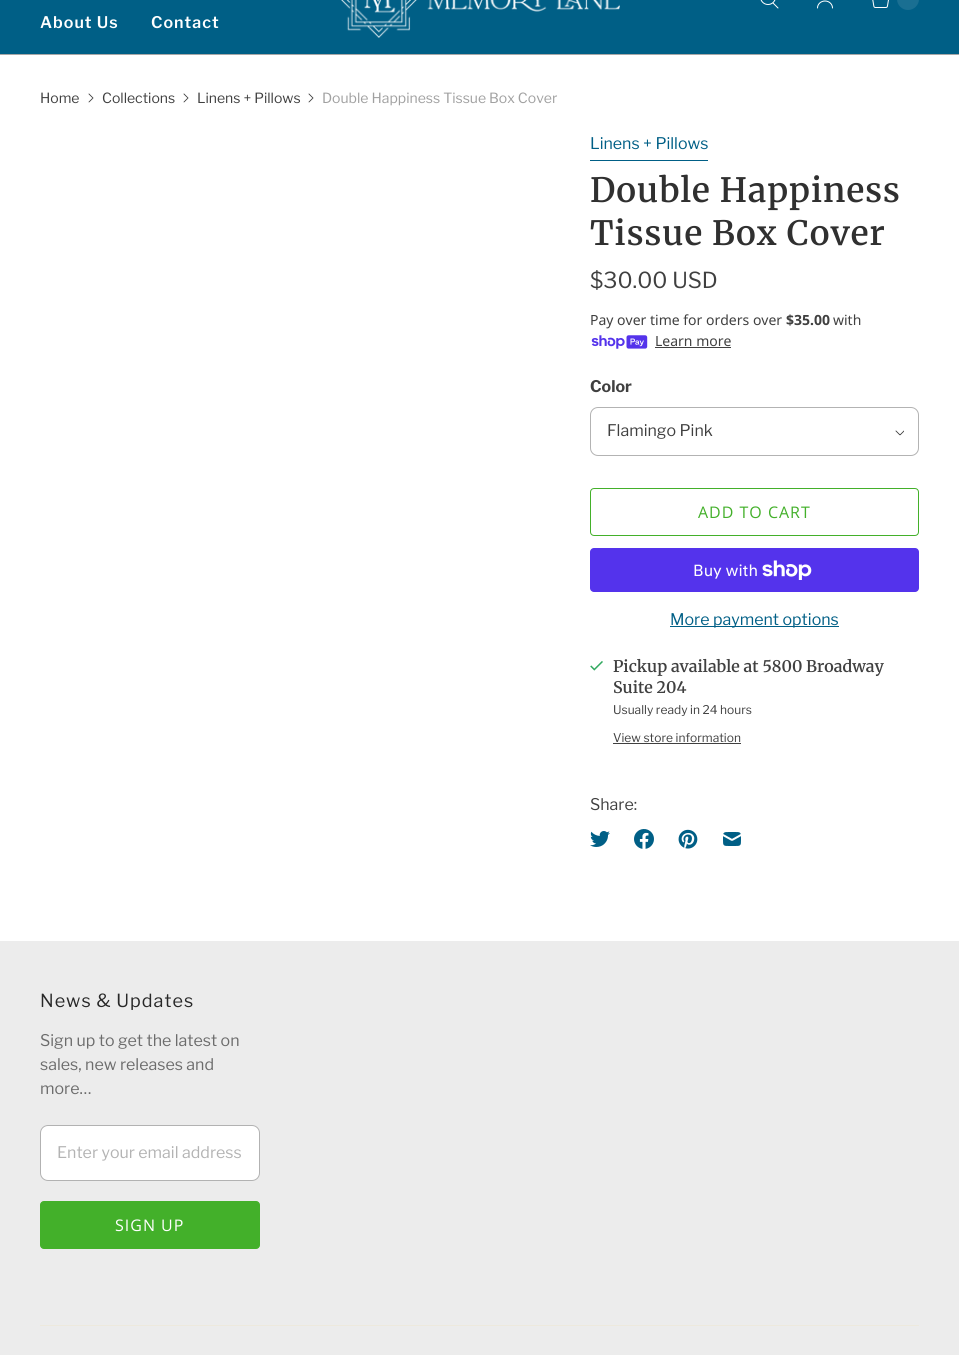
import math
import cairo

surface = cairo.ImageSurface(cairo.FORMAT_RGB24, 959, 1355)
ctx = cairo.Context(surface)
options = cairo.FontOptions()
options.set_hint_metrics(cairo.HINT_METRICS_OFF)
options.set_hint_style(cairo.HINT_STYLE_NONE)
ctx.set_font_options(options)
ctx.set_miter_limit(4)


def spaced_text(x, y, s, letter, word):
    ctx.move_to(x, y)
    for ch in s:
        ctx.show_text(ch)
        ctx.rel_move_to(letter + word * (ch == ' '), 0)


def round_rect(x, y, w, h, r):
    ctx.new_sub_path()
    for i, (u, v) in enumerate([(x + w - r, y + h - r), (x + r, y + h - r), (x + r, y + r), (x + w - r, y + r)]):
        ctx.arc(u, v, r, i * math.pi / 2, (i + 1) * math.pi / 2)
    ctx.close_path()


def picture(path, x, y, w, h):
    ctx.save()
    ctx.set_source_surface(cairo.ImageSurface.create_from_png(path), x, y)
    ctx.rectangle(x, y, w, h)
    ctx.fill()
    ctx.restore()


ctx.set_source_rgb(1, 1, 1)
ctx.paint()
ctx.set_source_rgb(0, 0.373, 0.525)
ctx.rectangle(0, 0, 959, 54)
ctx.fill()
ctx.set_source_rgb(0.655, 0.655, 0.655)
ctx.rectangle(0, 54, 959, 1)
ctx.fill()
ctx.select_font_face("Libre Franklin SemiBold")
ctx.set_font_size(16)
ctx.set_source_rgb(1, 1, 1)
spaced_text(40, 28, "About Us", 1, 0)
spaced_text(151, 28, "Contact", 1, 0)
picture("img1.png", 341, 0, 279, 38)
picture("img2.png", 760, 0, 19, 9)
picture("img3.png", 817, 0, 16, 9)
picture("img4.png", 872, 0, 17, 8)
ctx.set_source_rgb(0.102, 0.435, 0.573)
round_rect(897, -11, 22, 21, 11)
ctx.fill()
ctx.select_font_face("Libre Franklin")
ctx.set_font_size(14)
ctx.set_source_rgb(0.251, 0.251, 0.251)
ctx.move_to(40, 103)
ctx.show_text("Home")
picture("img5.png", 88, 93, 6, 10)
ctx.move_to(102, 103)
ctx.show_text("Collections")
picture("img5.png", 183, 93, 6, 10)
ctx.move_to(197, 103)
ctx.show_text("Linens + Pillows")
picture("img5.png", 308, 93, 6, 10)
ctx.set_source_rgb(0.627, 0.627, 0.627)
ctx.move_to(322, 103)
ctx.show_text("Double Happiness Tissue Box Cover")
ctx.set_font_size(16)
ctx.set_source_rgb(0, 0.373, 0.525)
ctx.move_to(590, 149)
ctx.show_text("Linens + Pillows")
ctx.rectangle(590, 160, 118, 1)
ctx.fill()
ctx.select_font_face("Merriweather SemiBold")
ctx.set_font_size(33.5)
ctx.set_source_rgb(0.188, 0.188, 0.188)
spaced_text(590, 202, "Double Happiness", 1, 0)
spaced_text(590, 245, "Tissue Box Cover", 1, 0)
ctx.select_font_face("Libre Franklin")
ctx.set_font_size(22)
ctx.set_source_rgb(0.251, 0.251, 0.251)
ctx.move_to(590, 288)
ctx.show_text("$30.00 USD")
ctx.select_font_face("Noto Sans")
ctx.set_font_size(14)
ctx.move_to(590, 325)
ctx.show_text("Pay over time for orders over")
ctx.select_font_face("Noto Sans", cairo.FONT_SLANT_NORMAL, cairo.FONT_WEIGHT_BOLD)
ctx.move_to(786, 325)
ctx.show_text("$35.00")
ctx.select_font_face("Noto Sans")
ctx.move_to(833, 325)
ctx.show_text("with")
picture("img6.png", 591, 335, 57, 14)
ctx.move_to(655, 346)
ctx.show_text("Learn more")
ctx.rectangle(655, 347, 76, 1)
ctx.fill()
ctx.select_font_face("Libre Franklin", cairo.FONT_SLANT_NORMAL, cairo.FONT_WEIGHT_BOLD)
ctx.set_font_size(16)
ctx.move_to(590, 392)
ctx.show_text("Color")
round_rect(590.5, 407.5, 328, 48, 7.5)
ctx.set_source_rgb(0.702, 0.702, 0.702)
ctx.set_line_width(1)
ctx.stroke()
ctx.select_font_face("Libre Franklin")
ctx.set_source_rgb(0.251, 0.251, 0.251)
ctx.move_to(607, 436)
ctx.show_text("Flamingo Pink")
picture("img7.png", 895, 430, 9, 6)
round_rect(590.5, 488.5, 328, 47, 3.5)
ctx.set_source_rgb(0.263, 0.69, 0.165)
ctx.stroke()
ctx.select_font_face("Open Sans")
spaced_text(698, 518, "ADD TO CART", 1, 0)
ctx.set_source_rgb(0.329, 0.2, 0.922)
round_rect(590, 548, 329, 44, 4)
ctx.fill()
ctx.select_font_face("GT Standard")
ctx.set_source_rgb(1, 1, 1)
ctx.move_to(693, 576)
ctx.show_text("Buy with")
picture("img8.png", 762, 560, 50, 20)
ctx.set_source_rgb(0, 0.373, 0.525)
ctx.rectangle(670, 626, 169, 1)
ctx.fill()
ctx.select_font_face("Libre Franklin")
ctx.move_to(670, 625)
ctx.show_text("More payment options")
picture("img9.png", 590, 661, 13, 10)
ctx.select_font_face("Merriweather SemiBold")
ctx.set_source_rgb(0.251, 0.251, 0.251)
ctx.move_to(613, 672)
ctx.show_text("Pickup available at 5800 Broadway")
ctx.move_to(613, 693)
ctx.show_text("Suite 204")
ctx.select_font_face("Libre Franklin")
ctx.set_font_size(12)
ctx.move_to(613, 714)
ctx.show_text("Usually ready in 24 hours")
ctx.move_to(613, 742)
ctx.show_text("View store information")
ctx.rectangle(613, 743, 128, 1)
ctx.fill()
ctx.set_font_size(16)
ctx.move_to(590, 810)
ctx.show_text("Share:")
picture("img10.png", 590, 831, 20, 16)
picture("img11.png", 634, 829, 20, 20)
picture("img12.png", 678, 829, 20, 20)
picture("img13.png", 723, 832, 18, 14)
ctx.set_source_rgb(0.925, 0.925, 0.925)
ctx.rectangle(0, 941, 959, 414)
ctx.fill()
ctx.set_font_size(18)
ctx.set_source_rgb(0.157, 0.157, 0.157)
spaced_text(40, 1007, "News & Updates", 1, 0)
ctx.set_font_size(16)
ctx.set_source_rgb(0.424, 0.424, 0.424)
ctx.move_to(40, 1046)
ctx.show_text("Sign up to get the latest on")
ctx.move_to(40, 1070)
ctx.show_text("sales, new releases and")
ctx.move_to(40, 1094)
ctx.show_text("more…")
ctx.set_source_rgb(1, 1, 1)
round_rect(40, 1125, 220, 56, 8)
ctx.fill()
round_rect(40.5, 1125.5, 219, 55, 7.5)
ctx.set_source_rgba(0.251, 0.251, 0.251, 0.4)
ctx.stroke()
ctx.set_source_rgb(0.702, 0.702, 0.702)
ctx.move_to(57, 1158)
ctx.show_text("Enter your email address")
ctx.set_source_rgb(0.263, 0.69, 0.165)
round_rect(40.5, 1201.5, 219, 47, 3.5)
ctx.fill_preserve()
ctx.stroke()
ctx.select_font_face("Open Sans")
ctx.set_source_rgb(1, 1, 1)
spaced_text(115, 1231, "SIGN UP", 1, 0)
ctx.set_source_rgb(0.929, 0.914, 0.867)
ctx.rectangle(40, 1325, 879, 1)
ctx.fill()
surface.write_to_png("page.png")
